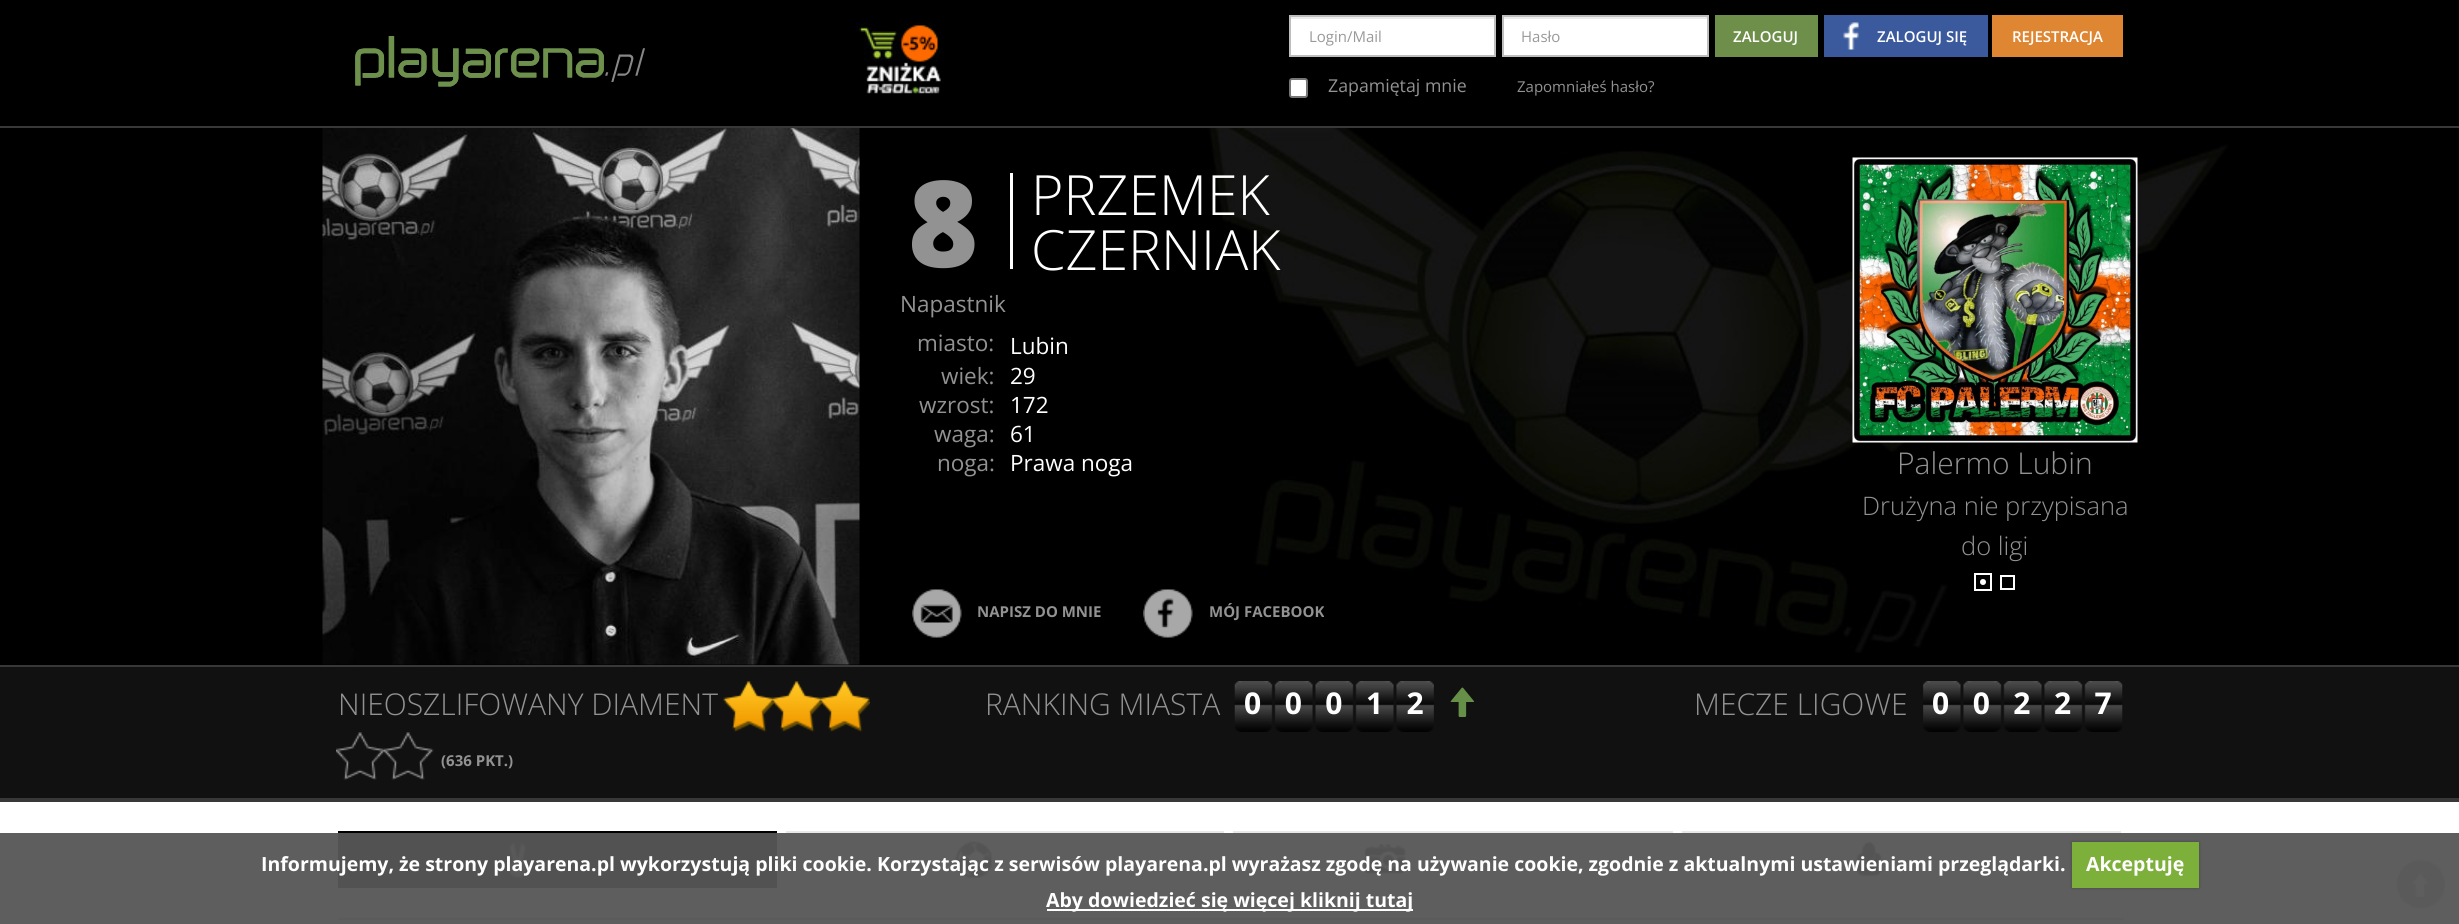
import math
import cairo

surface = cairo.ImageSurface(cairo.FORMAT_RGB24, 2459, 924)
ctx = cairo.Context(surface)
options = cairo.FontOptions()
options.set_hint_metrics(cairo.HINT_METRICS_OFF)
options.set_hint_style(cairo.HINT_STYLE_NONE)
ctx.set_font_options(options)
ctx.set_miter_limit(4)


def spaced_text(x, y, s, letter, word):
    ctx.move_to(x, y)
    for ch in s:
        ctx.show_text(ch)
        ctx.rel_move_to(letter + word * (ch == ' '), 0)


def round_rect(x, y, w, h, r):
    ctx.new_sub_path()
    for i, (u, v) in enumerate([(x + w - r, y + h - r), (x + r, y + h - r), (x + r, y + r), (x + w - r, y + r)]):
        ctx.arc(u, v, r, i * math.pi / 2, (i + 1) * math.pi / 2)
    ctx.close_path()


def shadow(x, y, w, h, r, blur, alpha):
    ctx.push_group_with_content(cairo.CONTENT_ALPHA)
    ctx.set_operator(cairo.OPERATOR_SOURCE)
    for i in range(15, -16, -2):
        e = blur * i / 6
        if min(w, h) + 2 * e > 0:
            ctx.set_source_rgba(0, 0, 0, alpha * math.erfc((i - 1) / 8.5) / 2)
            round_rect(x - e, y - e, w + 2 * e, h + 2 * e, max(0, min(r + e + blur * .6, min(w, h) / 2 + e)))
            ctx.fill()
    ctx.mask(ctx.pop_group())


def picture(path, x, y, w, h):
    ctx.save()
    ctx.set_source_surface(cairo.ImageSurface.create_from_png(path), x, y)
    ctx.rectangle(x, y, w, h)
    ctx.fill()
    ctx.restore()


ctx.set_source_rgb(1, 1, 1)
ctx.paint()
ctx.set_source_rgb(0.369, 0.369, 0.369)
ctx.rectangle(0, 833, 2459, 91)
ctx.fill()
ctx.set_source_rgb(0, 0, 0)
ctx.rectangle(0, 0, 2459, 126)
ctx.fill()
ctx.set_source_rgb(0.22, 0.22, 0.227)
ctx.rectangle(0, 126, 2459, 2)
ctx.fill()
picture("img1.png", 355, 36, 290, 51)
picture("img2.png", 855, 22, 89, 72)
ctx.set_source_rgb(1, 1, 1)
ctx.rectangle(1291, 19, 203, 36)
ctx.fill()
ctx.set_source_rgb(0.925, 0.925, 0.925)
ctx.rectangle(1290, 17, 204, 2)
ctx.fill()
ctx.rectangle(1290, 16, 205, 40)
ctx.set_source_rgb(0.745, 0.745, 0.745)
ctx.stroke()
ctx.select_font_face("Open Sans")
ctx.set_font_size(15)
ctx.set_source_rgb(0.6, 0.6, 0.6)
ctx.move_to(1309, 42)
ctx.show_text("Login/Mail")
ctx.set_source_rgb(1, 1, 1)
ctx.rectangle(1504, 19, 203, 36)
ctx.fill()
ctx.set_source_rgb(0.925, 0.925, 0.925)
ctx.rectangle(1503, 17, 204, 2)
ctx.fill()
ctx.rectangle(1503, 16, 205, 40)
ctx.set_source_rgb(0.745, 0.745, 0.745)
ctx.stroke()
ctx.set_source_rgb(0.6, 0.6, 0.6)
ctx.move_to(1521, 42)
ctx.show_text("Hasło")
ctx.set_source_rgb(0.431, 0.561, 0.29)
ctx.rectangle(1715, 15, 103, 42)
ctx.fill()
ctx.select_font_face("Open Sans SemiBold")
ctx.set_source_rgb(1, 1, 1)
ctx.move_to(1733, 42)
ctx.show_text("ZALOGUJ")
ctx.set_source_rgb(0.231, 0.353, 0.616)
ctx.rectangle(1824, 15, 164, 42)
ctx.fill()
picture("img3.png", 1843, 22, 16, 28)
ctx.set_source_rgb(1, 1, 1)
ctx.move_to(1877, 42)
ctx.show_text("ZALOGUJ SIĘ")
ctx.set_source_rgb(0.875, 0.525, 0.196)
ctx.rectangle(1992, 15, 131, 42)
ctx.fill()
ctx.set_source_rgb(1, 1, 1)
ctx.move_to(2012, 42)
ctx.show_text("REJESTRACJA")
round_rect(1290, 79, 17, 18, 2)
ctx.fill_preserve()
ctx.set_source_rgb(0.463, 0.463, 0.463)
ctx.stroke()
ctx.select_font_face("Open Sans")
ctx.set_font_size(17.75)
ctx.set_source_rgb(0.573, 0.573, 0.573)
ctx.move_to(1328, 92)
ctx.show_text("Zapamiętaj mnie")
ctx.set_font_size(15)
ctx.move_to(1517, 92)
ctx.show_text("Zapomniałeś hasło?")
ctx.set_source_rgb(0, 0, 0)
ctx.rectangle(0, 128, 2459, 537)
ctx.fill()
picture("img4.png", 118, 128, 2224, 525)
ctx.set_source_rgb(0.22, 0.22, 0.227)
ctx.rectangle(0, 798, 2459, 4)
ctx.fill()
picture("img5.png", 322, 128, 538, 537)
ctx.set_source_rgb(1, 1, 1)
ctx.rectangle(1010, 173, 3, 96)
ctx.fill()
ctx.select_font_face("Open Sans ExtraBold")
ctx.set_font_size(120)
ctx.set_source_rgb(0.573, 0.573, 0.573)
ctx.move_to(908, 267)
ctx.show_text("8")
ctx.select_font_face("Open Sans Light")
ctx.set_font_size(55.5)
ctx.set_source_rgb(1, 1, 1)
ctx.move_to(1031, 215)
ctx.show_text("PRZEMEK")
ctx.move_to(1031, 270)
ctx.show_text("CZERNIAK")
ctx.select_font_face("Open Sans")
ctx.set_font_size(22.5)
ctx.set_source_rgb(0.573, 0.573, 0.573)
ctx.move_to(900, 312)
ctx.show_text("Napastnik")
ctx.move_to(917, 351)
ctx.show_text("miasto:")
ctx.set_source_rgb(1, 1, 1)
ctx.move_to(1010, 354)
ctx.show_text("Lubin")
ctx.set_source_rgb(0.573, 0.573, 0.573)
ctx.move_to(941, 384)
ctx.show_text("wiek:")
ctx.set_source_rgb(1, 1, 1)
ctx.move_to(1010, 384)
ctx.show_text("29")
ctx.set_source_rgb(0.573, 0.573, 0.573)
ctx.move_to(919, 413)
ctx.show_text("wzrost:")
ctx.set_source_rgb(1, 1, 1)
ctx.move_to(1010, 413)
ctx.show_text("172")
ctx.set_source_rgb(0.573, 0.573, 0.573)
ctx.move_to(934, 442)
ctx.show_text("waga:")
ctx.set_source_rgb(1, 1, 1)
ctx.move_to(1010, 442)
ctx.show_text("61")
ctx.set_source_rgb(0.573, 0.573, 0.573)
ctx.move_to(937, 471)
ctx.show_text("noga:")
ctx.set_source_rgb(1, 1, 1)
ctx.move_to(1010, 471)
ctx.show_text("Prawa noga")
picture("img6.png", 912, 589, 50, 49)
ctx.select_font_face("Open Sans", cairo.FONT_SLANT_NORMAL, cairo.FONT_WEIGHT_BOLD)
ctx.set_font_size(15)
ctx.set_source_rgb(0.573, 0.573, 0.573)
ctx.move_to(977, 617)
ctx.show_text("NAPISZ DO MNIE")
picture("img7.png", 1143, 589, 50, 49)
ctx.move_to(1209, 617)
ctx.show_text("MÓJ FACEBOOK")
picture("img8.png", 1852, 157, 286, 286)
ctx.select_font_face("Open Sans Light")
ctx.set_font_size(30)
ctx.move_to(1897, 474)
ctx.show_text("Palermo Lubin")
ctx.set_font_size(25.5)
ctx.move_to(1862, 515)
ctx.show_text("Drużyna nie przypisana")
ctx.move_to(1961, 555)
ctx.show_text("do ligi")
ctx.rectangle(1975, 574, 16, 16)
ctx.set_source_rgb(1, 1, 1)
ctx.stroke()
ctx.arc(1983, 582, 3, 0, 2 * math.pi)
ctx.fill()
ctx.rectangle(2001, 576, 13, 13)
ctx.stroke()
ctx.set_source_rgb(0.067, 0.067, 0.067)
ctx.rectangle(0, 667, 2459, 131)
ctx.fill()
ctx.set_source_rgb(0.22, 0.22, 0.227)
ctx.rectangle(0, 665, 2459, 2)
ctx.fill()
ctx.set_font_size(30)
ctx.set_source_rgb(0.573, 0.573, 0.573)
ctx.move_to(338, 715)
ctx.show_text("NIEOSZLIFOWANY DIAMENT")
picture("img9.png", 723, 681, 51, 51)
picture("img10.png", 771, 681, 51, 51)
picture("img10.png", 819, 681, 51, 51)
picture("img11.png", 336, 732, 50, 48)
picture("img12.png", 384, 732, 50, 48)
ctx.select_font_face("Open Sans", cairo.FONT_SLANT_NORMAL, cairo.FONT_WEIGHT_BOLD)
ctx.set_font_size(15)
ctx.move_to(441, 766)
ctx.show_text("(636 PKT.)")
ctx.select_font_face("Open Sans Light")
ctx.set_font_size(30)
ctx.move_to(985, 715)
ctx.show_text("RANKING MIASTA")
picture("img13.png", 1234, 681, 200, 51)
ctx.select_font_face("Open Sans", cairo.FONT_SLANT_NORMAL, cairo.FONT_WEIGHT_BOLD)
ctx.set_source_rgb(1, 1, 1)
spaced_text(1244, 714, "00012", 23.5, 0)
picture("img14.png", 1450, 687, 24, 30)
ctx.select_font_face("Open Sans Light")
ctx.set_source_rgb(0.573, 0.573, 0.573)
ctx.move_to(1694, 715)
ctx.show_text("MECZE LIGOWE")
picture("img15.png", 1923, 681, 200, 51)
ctx.select_font_face("Open Sans", cairo.FONT_SLANT_NORMAL, cairo.FONT_WEIGHT_BOLD)
ctx.set_source_rgb(1, 1, 1)
spaced_text(1932, 714, "00227", 23.5, 0)
ctx.set_source_rgb(0, 0, 0)
ctx.rectangle(338, 831, 439, 2)
ctx.fill()
ctx.set_source_rgb(0.322, 0.322, 0.322)
ctx.rectangle(338, 833, 439, 55)
ctx.fill()
picture("img16.png", 508, 842, 19, 37)
ctx.set_source_rgb(0.91, 0.91, 0.91)
ctx.rectangle(786, 831, 438, 2)
ctx.fill()
picture("img17.png", 955, 841, 37, 37)
ctx.rectangle(1233, 831, 440, 2)
ctx.fill()
picture("img18.png", 1364, 844, 42, 30)
ctx.rectangle(1682, 831, 439, 2)
ctx.fill()
picture("img19.png", 1856, 841, 26, 36)
ctx.set_source_rgb(0.357, 0.357, 0.357)
ctx.rectangle(338, 918, 1786, 2)
ctx.fill()
ctx.set_font_size(19.5)
ctx.set_source_rgb(1, 1, 1)
ctx.move_to(261, 871)
ctx.show_text("Informujemy, że strony playarena.pl wykorzystują pliki cookie. Korzystając z serwisów playarena.pl wyrażasz zgodę na używanie cookie, zgodnie z aktualnymi ustawieniami przeglądarki.")
ctx.set_source_rgb(0, 0, 0)
shadow(2072, 842, 127, 46, 0, 1.5, 0.25)
ctx.set_source_rgb(0.49, 0.686, 0.231)
ctx.rectangle(2072, 842, 127, 46)
ctx.fill()
ctx.set_source_rgb(1, 1, 1)
ctx.move_to(2086, 871)
ctx.show_text("Akceptuję")
ctx.rectangle(1047, 909, 366, 2)
ctx.fill()
ctx.move_to(1046, 907)
ctx.show_text("Aby dowiedzieć się więcej kliknij tutaj")
picture("img20.png", 2396, 859, 49, 50)
surface.write_to_png("page.png")
